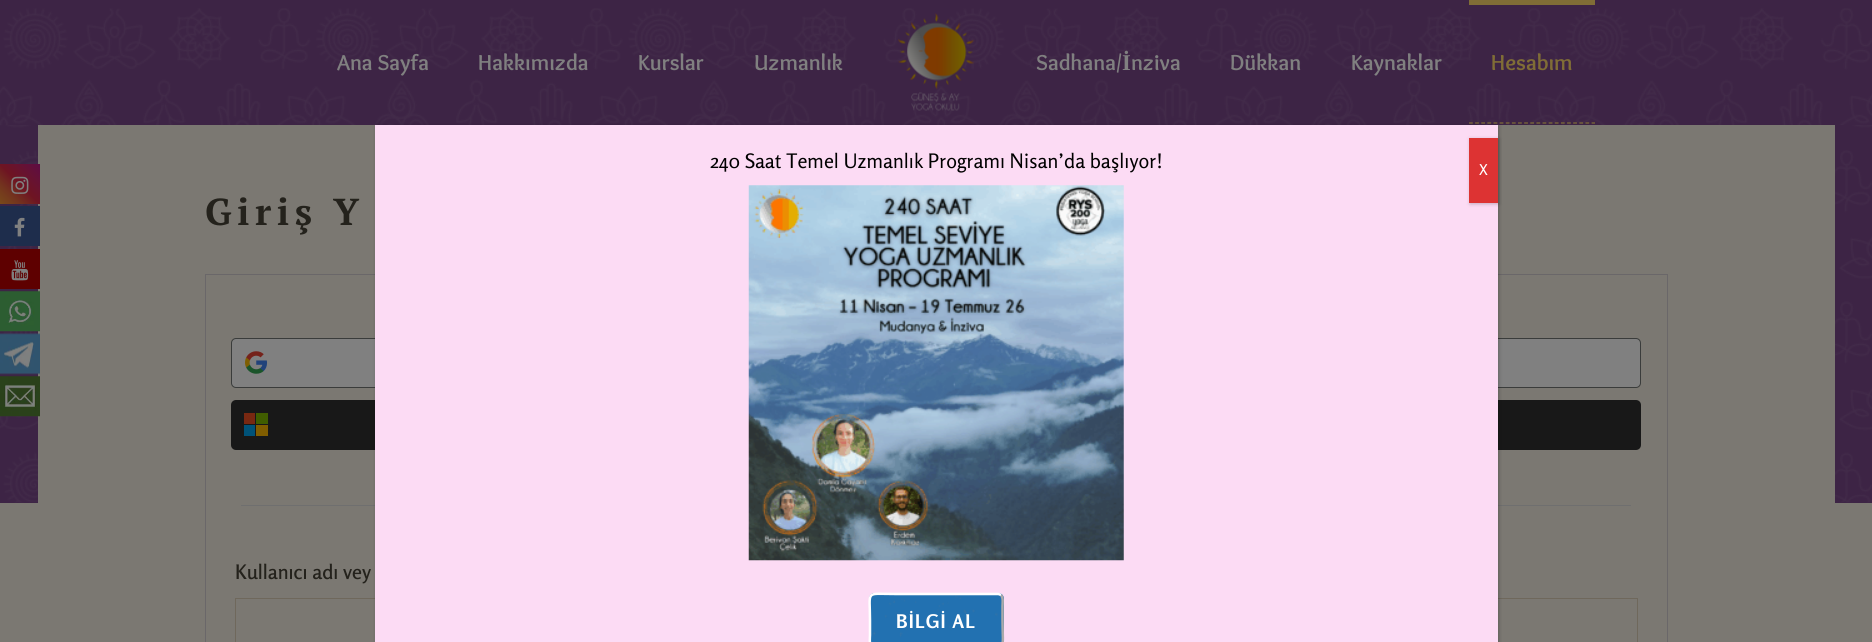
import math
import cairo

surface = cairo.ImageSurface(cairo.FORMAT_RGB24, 1872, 642)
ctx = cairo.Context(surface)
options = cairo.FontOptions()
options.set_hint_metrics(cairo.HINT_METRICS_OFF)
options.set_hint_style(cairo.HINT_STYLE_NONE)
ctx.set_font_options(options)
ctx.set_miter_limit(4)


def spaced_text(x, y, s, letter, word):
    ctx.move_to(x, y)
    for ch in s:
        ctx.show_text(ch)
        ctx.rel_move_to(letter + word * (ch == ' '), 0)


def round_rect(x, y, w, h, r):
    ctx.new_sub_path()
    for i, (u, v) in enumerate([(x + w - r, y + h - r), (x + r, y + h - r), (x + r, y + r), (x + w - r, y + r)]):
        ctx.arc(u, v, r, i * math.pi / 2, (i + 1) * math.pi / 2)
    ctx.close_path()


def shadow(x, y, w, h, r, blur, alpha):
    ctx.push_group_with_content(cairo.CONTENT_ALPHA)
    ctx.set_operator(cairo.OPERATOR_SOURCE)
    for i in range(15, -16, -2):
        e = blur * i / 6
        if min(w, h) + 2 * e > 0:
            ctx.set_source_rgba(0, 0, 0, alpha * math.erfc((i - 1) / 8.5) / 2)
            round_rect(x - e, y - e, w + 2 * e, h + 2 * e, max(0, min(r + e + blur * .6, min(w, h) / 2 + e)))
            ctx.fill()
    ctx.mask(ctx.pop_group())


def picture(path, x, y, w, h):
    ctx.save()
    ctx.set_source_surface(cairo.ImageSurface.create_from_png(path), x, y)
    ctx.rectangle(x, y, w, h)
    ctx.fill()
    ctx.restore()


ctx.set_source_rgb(0.482, 0.471, 0.447)
ctx.paint()
ctx.set_source_rgb(0.239, 0.141, 0.271)
ctx.rectangle(0, 0, 1872, 503)
ctx.fill()
picture("img1.png", 0, 125, 1872, 378)
picture("img2.png", 0, 8, 1872, 117)
picture("img3.png", 898, 13, 77, 98)
ctx.select_font_face("Overlock", cairo.FONT_SLANT_NORMAL, cairo.FONT_WEIGHT_BOLD)
ctx.set_font_size(22.5)
ctx.set_source_rgb(0.502, 0.502, 0.502)
ctx.move_to(337, 70)
ctx.show_text("Ana Sayfa")
ctx.move_to(478, 70)
ctx.show_text("Hakkımızda")
ctx.move_to(638, 70)
ctx.show_text("Kurslar")
ctx.move_to(754, 70)
ctx.show_text("Uzmanlık")
ctx.move_to(1036, 70)
ctx.show_text("Sadhana/")
ctx.select_font_face("Liberation Serif", cairo.FONT_SLANT_NORMAL, cairo.FONT_WEIGHT_BOLD)
ctx.move_to(1122, 70)
ctx.show_text("İ")
ctx.select_font_face("Overlock", cairo.FONT_SLANT_NORMAL, cairo.FONT_WEIGHT_BOLD)
ctx.move_to(1131, 70)
ctx.show_text("nziva")
ctx.move_to(1230, 70)
ctx.show_text("Dükkan")
ctx.move_to(1351, 70)
ctx.show_text("Kaynaklar")
ctx.set_source_rgb(0.502, 0.427, 0.212)
ctx.rectangle(1469, 0, 126, 5)
ctx.fill()
ctx.move_to(1491, 70)
ctx.show_text("Hesabım")
ctx.new_path()
ctx.move_to(1469, 123)
ctx.line_to(1595, 123)
ctx.set_line_width(1.2)
ctx.set_dash([3.75, 2.38])
ctx.stroke()
ctx.set_source_rgb(0.482, 0.471, 0.447)
ctx.rectangle(38, 125, 1797, 378)
ctx.fill()
ctx.select_font_face("PT Serif", cairo.FONT_SLANT_NORMAL, cairo.FONT_WEIGHT_BOLD)
ctx.set_font_size(37.5)
ctx.set_source_rgb(0.141, 0.133, 0.11)
spaced_text(205, 225, "Giriş Y", 5.5, 0)
ctx.rectangle(205.5, 274.5, 702, 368)
ctx.set_source_rgb(0.416, 0.404, 0.412)
ctx.set_line_width(1)
ctx.set_dash([])
ctx.stroke()
ctx.set_source_rgb(0.502, 0.502, 0.502)
round_rect(231.5, 338.5, 649, 49, 4.5)
ctx.fill_preserve()
ctx.set_source_rgb(0.227, 0.235, 0.231)
ctx.stroke()
picture("img4.png", 245, 351, 23, 23)
ctx.set_source_rgb(0.094, 0.094, 0.094)
round_rect(231, 400, 650, 50, 5)
ctx.fill()
ctx.set_source_rgb(0.475, 0.157, 0.067)
ctx.rectangle(244, 413, 11, 11)
ctx.fill()
ctx.set_source_rgb(0, 0.322, 0.471)
ctx.rectangle(244, 425, 11, 11)
ctx.fill()
ctx.set_source_rgb(0.251, 0.365, 0)
ctx.rectangle(256, 413, 12, 11)
ctx.fill()
ctx.set_source_rgb(0.502, 0.365, 0)
ctx.rectangle(256, 425, 12, 11)
ctx.fill()
ctx.set_source_rgb(0.435, 0.435, 0.435)
ctx.rectangle(241, 505, 134, 1)
ctx.fill()
ctx.select_font_face("Rosario SemiBold")
ctx.set_font_size(20)
ctx.set_source_rgb(0.141, 0.133, 0.11)
ctx.move_to(235, 579)
ctx.show_text("Kullanıcı adı vey")
ctx.rectangle(235.5, 598.5, 642, 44)
ctx.set_source_rgb(0.435, 0.408, 0.361)
ctx.stroke()
ctx.rectangle(965.5, 274.5, 702, 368)
ctx.set_source_rgb(0.416, 0.404, 0.412)
ctx.stroke()
ctx.set_source_rgb(0.502, 0.502, 0.502)
round_rect(991.5, 338.5, 649, 49, 4.5)
ctx.fill_preserve()
ctx.set_source_rgb(0.227, 0.235, 0.231)
ctx.stroke()
ctx.set_source_rgb(0.094, 0.094, 0.094)
round_rect(991, 400, 650, 50, 5)
ctx.fill()
ctx.set_source_rgb(0.435, 0.435, 0.435)
ctx.rectangle(1498, 505, 133, 1)
ctx.fill()
ctx.rectangle(995.5, 598.5, 642, 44)
ctx.set_source_rgb(0.435, 0.408, 0.361)
ctx.stroke()
gradient = cairo.LinearGradient(0, 204, 40, 164)
gradient.add_color_stop_rgba(0, 0.471, 0.29, 0.102, 1)
gradient.add_color_stop_rgba(0.25, 0.451, 0.204, 0.118, 1)
gradient.add_color_stop_rgba(0.5, 0.431, 0.078, 0.133, 1)
gradient.add_color_stop_rgba(0.75, 0.4, 0.071, 0.2, 1)
gradient.add_color_stop_rgba(1, 0.369, 0.047, 0.267, 1)
ctx.set_source(gradient)
ctx.rectangle(0, 164, 40, 40)
ctx.fill()
picture("img5.png", 11, 176, 18, 18)
ctx.set_source_rgb(0.118, 0.176, 0.298)
ctx.rectangle(0, 206, 40, 40)
ctx.fill()
picture("img6.png", 14, 217, 11, 20)
ctx.set_source_rgb(0.369, 0, 0)
ctx.rectangle(0, 249, 40, 40)
ctx.fill()
picture("img7.png", 11, 260, 18, 21)
picture("img8.png", 0, 291, 40, 41)
picture("img9.png", 0, 333, 40, 42)
picture("img10.png", 0, 376, 40, 41)
ctx.set_source_rgb(0.008, 0.008, 0.008)
shadow(376, 126, 1123, 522, 0, 2, 0.23)
ctx.set_source_rgb(0.988, 0.859, 0.957)
ctx.rectangle(375, 125, 1123, 517)
ctx.fill()
ctx.select_font_face("Rosario")
ctx.set_source_rgb(0, 0, 0)
ctx.move_to(710, 168)
ctx.show_text("240 Saat Temel Uzmanlık Programı Nisan’da başlıyor!")
picture("img11.png", 748, 185, 376, 376)
ctx.set_source_rgb(0.133, 0.443, 0.694)
ctx.new_path()
ctx.move_to(875, 593)
ctx.line_to(998, 593)
ctx.curve_to(1001.5, 593, 1004, 595.5, 1004, 599)
ctx.line_to(1004, 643)
ctx.line_to(869, 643)
ctx.line_to(869, 599)
ctx.curve_to(869, 595.5, 871.5, 593, 875, 593)
ctx.close_path()
ctx.fill()
picture("img12.png", 872, 595, 126, 42)
ctx.new_path()
ctx.move_to(1001, 595)
ctx.curve_to(1003.5, 598, 1002.5, 603.5, 1002.5, 606)
ctx.line_to(1002.5, 620.5)
ctx.curve_to(1002.5, 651.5, 1008, 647.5, 977, 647.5)
ctx.line_to(875, 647.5)
ctx.curve_to(873.5, 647.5, 872.5, 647, 871.5, 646)
ctx.set_source_rgb(0.667, 0.667, 0.667)
ctx.set_line_width(2.5)
ctx.stroke()
ctx.new_path()
ctx.move_to(871.5, 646)
ctx.curve_to(869, 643.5, 870, 638, 870, 635)
ctx.line_to(870, 620.5)
ctx.curve_to(870, 589.5, 864.5, 594, 895.5, 594)
ctx.line_to(997.5, 594)
ctx.curve_to(999, 594, 1000, 594.5, 1001, 595)
ctx.set_source_rgb(1, 1, 1)
ctx.stroke()
ctx.select_font_face("Rosario", cairo.FONT_SLANT_NORMAL, cairo.FONT_WEIGHT_BOLD)
ctx.set_font_size(18.75)
spaced_text(896, 628, "BİLGİ AL", 1.25, 0)
ctx.set_source_rgb(0.008, 0.008, 0.008)
shadow(1470, 139, 29, 65, 0, 2, 0.23)
ctx.set_source_rgb(0.867, 0.2, 0.2)
ctx.rectangle(1469, 138, 29, 65)
ctx.fill()
ctx.select_font_face("Rosario")
ctx.set_font_size(15)
ctx.set_source_rgb(1, 1, 1)
ctx.move_to(1479, 175)
ctx.show_text("X")
surface.write_to_png("page.png")
